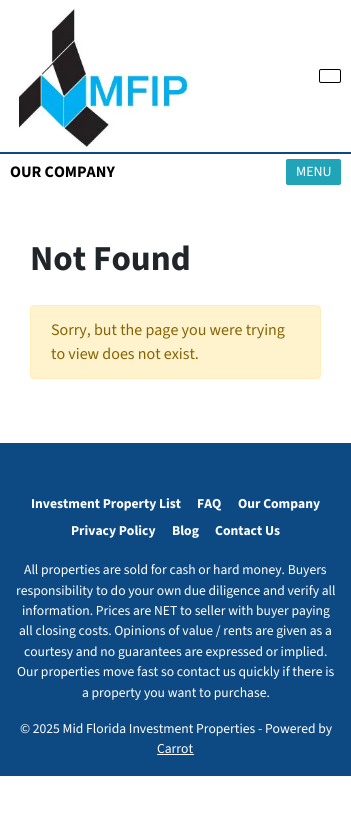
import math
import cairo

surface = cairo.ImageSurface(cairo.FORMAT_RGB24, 351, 820)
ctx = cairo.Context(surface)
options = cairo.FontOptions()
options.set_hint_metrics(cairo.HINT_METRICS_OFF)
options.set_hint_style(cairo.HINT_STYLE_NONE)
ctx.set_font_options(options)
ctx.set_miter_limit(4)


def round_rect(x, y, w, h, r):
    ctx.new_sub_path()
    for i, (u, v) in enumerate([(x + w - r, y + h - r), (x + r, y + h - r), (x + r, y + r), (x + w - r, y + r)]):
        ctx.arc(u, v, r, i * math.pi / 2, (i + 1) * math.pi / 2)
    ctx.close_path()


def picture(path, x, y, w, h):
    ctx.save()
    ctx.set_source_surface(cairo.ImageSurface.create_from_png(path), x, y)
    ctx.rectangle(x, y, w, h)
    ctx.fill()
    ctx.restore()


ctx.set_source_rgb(1, 1, 1)
ctx.paint()
picture("img1.png", 16, 9, 174, 139)
round_rect(319.5, 69.5, 21, 13, 1.5)
ctx.set_source_rgb(0, 0, 0)
ctx.set_line_width(1)
ctx.stroke()
ctx.set_source_rgb(0.051, 0.29, 0.514)
ctx.rectangle(0, 152, 351, 2)
ctx.fill()
ctx.select_font_face("Source Sans 3", cairo.FONT_SLANT_NORMAL, cairo.FONT_WEIGHT_BOLD)
ctx.set_font_size(16)
ctx.set_source_rgb(0, 0, 0)
ctx.move_to(10, 177)
ctx.show_text("OUR COMPANY")
ctx.set_source_rgb(0.129, 0.639, 0.722)
round_rect(286.5, 159.5, 54, 25, 1.5)
ctx.fill_preserve()
ctx.stroke()
ctx.select_font_face("Source Sans 3")
ctx.set_font_size(14)
ctx.set_source_rgb(1, 1, 1)
ctx.move_to(296, 176)
ctx.show_text("MENU")
ctx.select_font_face("Source Sans 3", cairo.FONT_SLANT_NORMAL, cairo.FONT_WEIGHT_BOLD)
ctx.set_font_size(35)
ctx.set_source_rgb(0.129, 0.145, 0.161)
ctx.move_to(30, 270)
ctx.show_text("Not Found")
ctx.set_source_rgb(1, 0.953, 0.804)
round_rect(30.5, 305.5, 290, 73, 3.5)
ctx.fill_preserve()
ctx.set_source_rgb(1, 0.933, 0.729)
ctx.stroke()
ctx.select_font_face("Source Sans 3")
ctx.set_font_size(16)
ctx.set_source_rgb(0.522, 0.392, 0.016)
ctx.move_to(51, 335)
ctx.show_text("Sorry, but the page you were trying")
ctx.move_to(51, 359)
ctx.show_text("to view does not exist.")
ctx.set_source_rgb(0.051, 0.29, 0.514)
ctx.rectangle(0, 443, 351, 333)
ctx.fill()
ctx.select_font_face("Source Sans 3", cairo.FONT_SLANT_NORMAL, cairo.FONT_WEIGHT_BOLD)
ctx.set_font_size(13.6)
ctx.set_source_rgb(1, 1, 1)
ctx.move_to(31, 508)
ctx.show_text("Investment Property List")
ctx.move_to(197, 508)
ctx.show_text("FAQ")
ctx.move_to(238, 508)
ctx.show_text("Our Company")
ctx.move_to(71, 535)
ctx.show_text("Privacy Policy")
ctx.move_to(172, 535)
ctx.show_text("Blog")
ctx.move_to(215, 535)
ctx.show_text("Contact Us")
ctx.select_font_face("Source Sans 3")
ctx.move_to(24, 574)
ctx.show_text("All properties are sold for cash or hard money. Buyers")
ctx.move_to(16, 595)
ctx.show_text("responsibility to do your own due diligence and verify all")
ctx.move_to(22, 615)
ctx.show_text("information. Prices are NET to seller with buyer paying")
ctx.move_to(19, 635)
ctx.show_text("all closing costs. Opinions of value / rents are given as a")
ctx.move_to(24, 656)
ctx.show_text("courtesy and no guarantees are expressed or implied.")
ctx.move_to(17, 676)
ctx.show_text("Our properties move fast so contact us quickly if there is")
ctx.move_to(82, 697)
ctx.show_text("a property you want to purchase.")
ctx.move_to(20, 733)
ctx.show_text("© 2025 Mid Florida Investment Properties - Powered by")
ctx.move_to(157, 753)
ctx.show_text("Carrot")
ctx.rectangle(157, 754, 37, 1)
ctx.fill()
surface.write_to_png("page.png")
